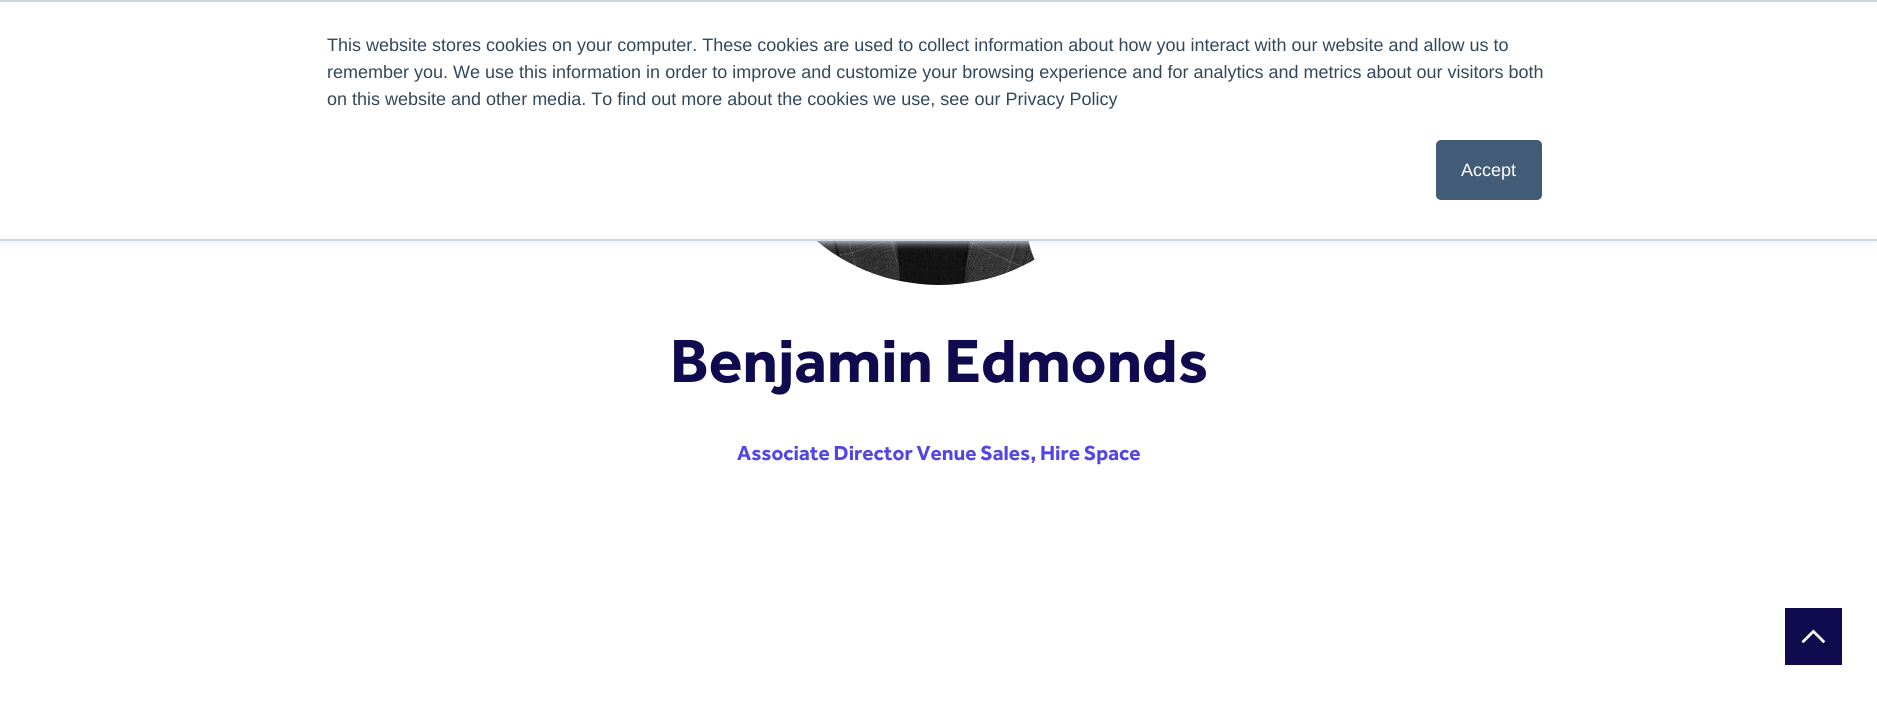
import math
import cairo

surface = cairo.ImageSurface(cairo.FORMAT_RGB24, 1877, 703)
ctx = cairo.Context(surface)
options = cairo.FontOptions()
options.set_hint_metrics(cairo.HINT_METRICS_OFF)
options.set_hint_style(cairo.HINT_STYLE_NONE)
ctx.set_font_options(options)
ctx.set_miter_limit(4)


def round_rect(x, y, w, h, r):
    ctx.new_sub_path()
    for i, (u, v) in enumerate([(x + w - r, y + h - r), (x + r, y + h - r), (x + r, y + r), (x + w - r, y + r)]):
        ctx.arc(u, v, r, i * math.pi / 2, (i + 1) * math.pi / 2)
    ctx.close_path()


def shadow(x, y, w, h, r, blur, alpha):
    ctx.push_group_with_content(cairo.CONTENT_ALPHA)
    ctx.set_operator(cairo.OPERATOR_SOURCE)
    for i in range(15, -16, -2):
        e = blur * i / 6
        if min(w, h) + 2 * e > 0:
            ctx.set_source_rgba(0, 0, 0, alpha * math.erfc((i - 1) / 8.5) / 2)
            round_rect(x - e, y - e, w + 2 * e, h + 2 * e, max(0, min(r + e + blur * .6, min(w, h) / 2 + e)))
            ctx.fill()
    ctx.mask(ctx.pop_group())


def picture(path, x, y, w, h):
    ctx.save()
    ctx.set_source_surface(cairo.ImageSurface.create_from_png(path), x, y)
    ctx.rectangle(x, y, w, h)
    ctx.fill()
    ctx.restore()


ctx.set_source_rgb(1, 1, 1)
ctx.paint()
picture("img1.png", 816, 241, 219, 44)
ctx.set_source_rgb(1, 1, 1)
ctx.arc(1131, 218, 105, 0, 2 * math.pi)
ctx.fill()
ctx.set_source_rgb(0.918, 0.941, 0.965)
shadow(0, 2, 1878, 240, 0, 4, 1)
ctx.set_source_rgb(1, 1, 1)
ctx.rectangle(0, 2, 1877, 237)
ctx.fill()
ctx.set_source_rgb(0.796, 0.839, 0.886)
ctx.rectangle(0, 0, 1877, 2)
ctx.fill()
ctx.rectangle(0, 239, 1877, 2)
ctx.fill()
ctx.select_font_face("Liberation Sans")
ctx.set_font_size(18)
ctx.set_source_rgb(0.2, 0.278, 0.357)
ctx.move_to(327, 51)
ctx.show_text("This website stores cookies on your computer. These cookies are used to collect information about how you interact with our website and allow us to")
ctx.move_to(327, 78)
ctx.show_text("remember you. We use this information in order to improve and customize your browsing experience and for analytics and metrics about our visitors both")
ctx.move_to(327, 105)
ctx.show_text("on this website and other media. To find out more about the cookies we use, see our Privacy Policy")
ctx.set_source_rgb(0.259, 0.357, 0.463)
round_rect(1437, 141, 104, 58, 4)
ctx.fill_preserve()
ctx.stroke()
ctx.set_source_rgb(1, 1, 1)
ctx.move_to(1461, 176)
ctx.show_text("Accept")
ctx.select_font_face("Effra", cairo.FONT_SLANT_NORMAL, cairo.FONT_WEIGHT_BOLD)
ctx.set_font_size(63)
ctx.set_source_rgb(0.063, 0.043, 0.306)
ctx.move_to(670, 382)
ctx.show_text("Benjamin Edmonds")
ctx.set_font_size(21)
ctx.set_source_rgb(0.322, 0.278, 0.898)
ctx.move_to(737, 460)
ctx.show_text("Associate Director Venue Sales, Hire Space")
ctx.set_source_rgb(0.063, 0.043, 0.306)
ctx.rectangle(1785, 608, 57, 57)
ctx.fill()
picture("img2.png", 1801, 629, 24, 14)
surface.write_to_png("page.png")
